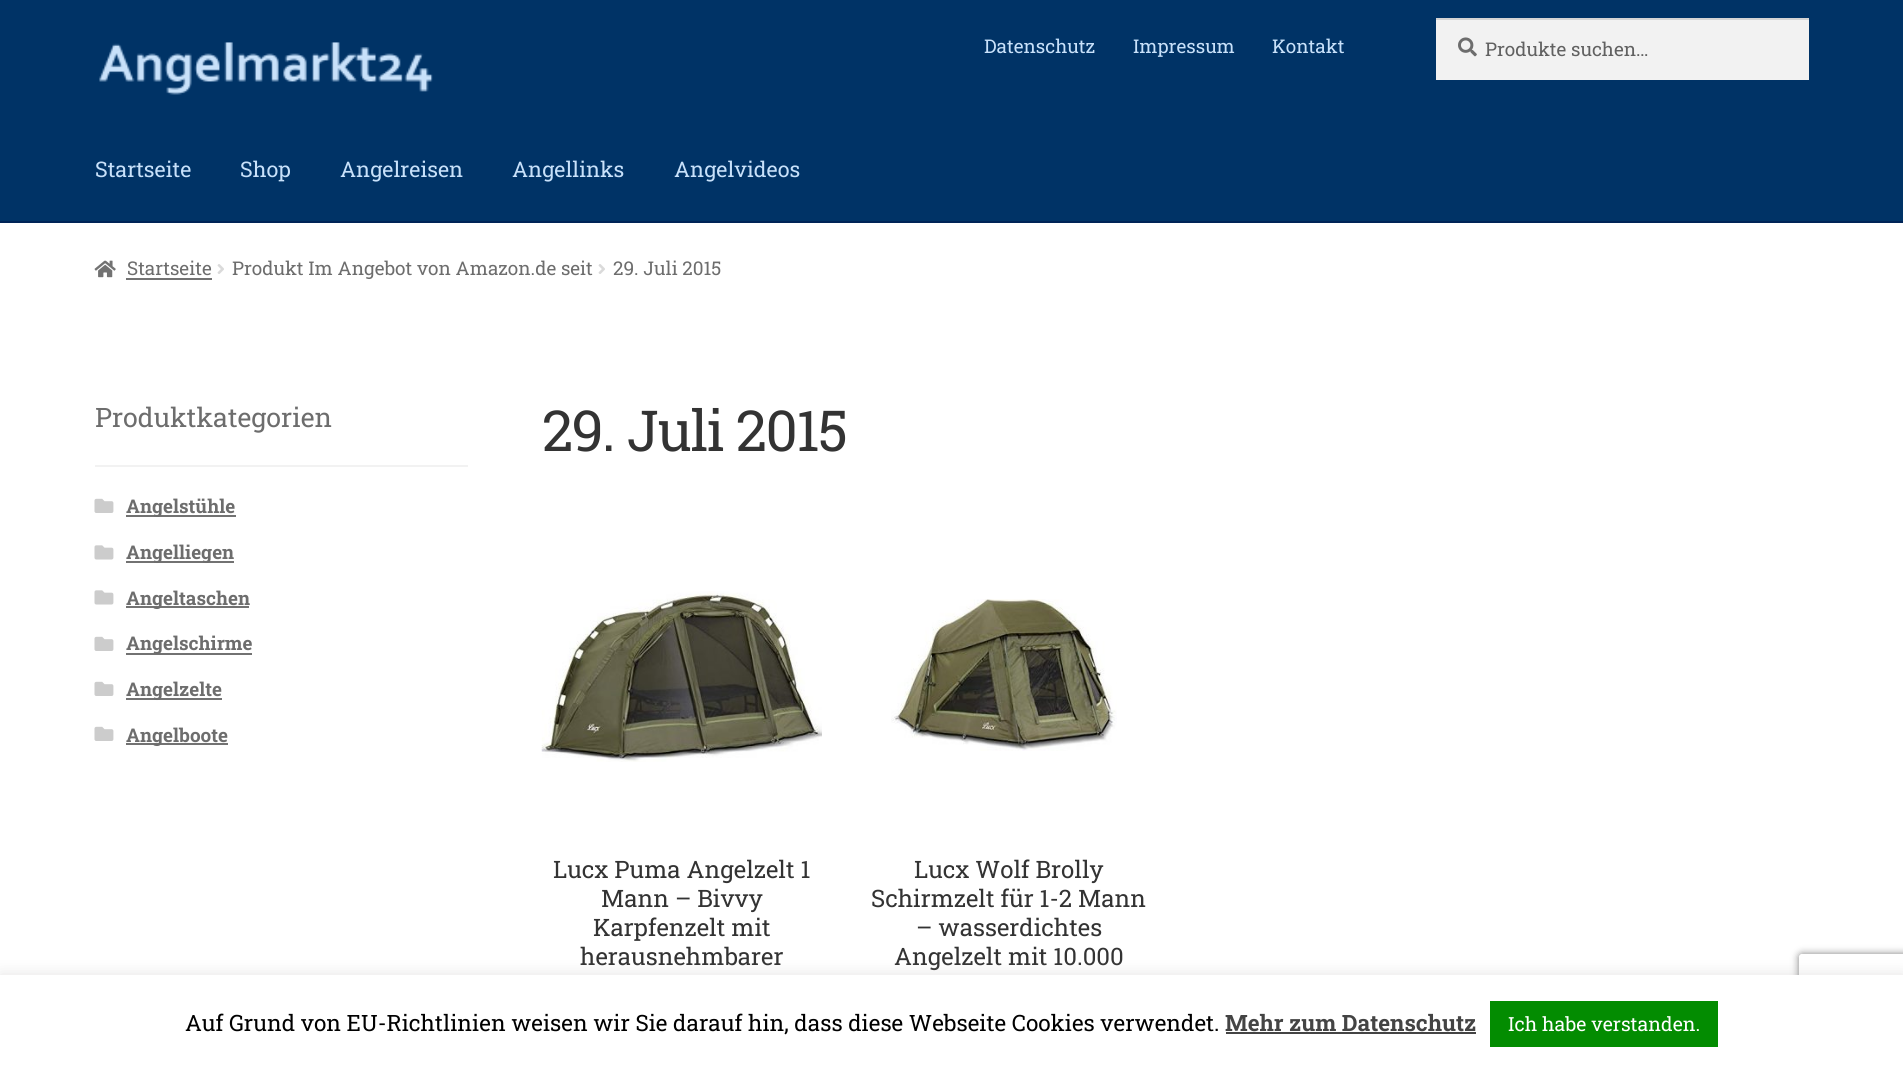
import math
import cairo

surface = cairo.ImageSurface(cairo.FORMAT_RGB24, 1903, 1065)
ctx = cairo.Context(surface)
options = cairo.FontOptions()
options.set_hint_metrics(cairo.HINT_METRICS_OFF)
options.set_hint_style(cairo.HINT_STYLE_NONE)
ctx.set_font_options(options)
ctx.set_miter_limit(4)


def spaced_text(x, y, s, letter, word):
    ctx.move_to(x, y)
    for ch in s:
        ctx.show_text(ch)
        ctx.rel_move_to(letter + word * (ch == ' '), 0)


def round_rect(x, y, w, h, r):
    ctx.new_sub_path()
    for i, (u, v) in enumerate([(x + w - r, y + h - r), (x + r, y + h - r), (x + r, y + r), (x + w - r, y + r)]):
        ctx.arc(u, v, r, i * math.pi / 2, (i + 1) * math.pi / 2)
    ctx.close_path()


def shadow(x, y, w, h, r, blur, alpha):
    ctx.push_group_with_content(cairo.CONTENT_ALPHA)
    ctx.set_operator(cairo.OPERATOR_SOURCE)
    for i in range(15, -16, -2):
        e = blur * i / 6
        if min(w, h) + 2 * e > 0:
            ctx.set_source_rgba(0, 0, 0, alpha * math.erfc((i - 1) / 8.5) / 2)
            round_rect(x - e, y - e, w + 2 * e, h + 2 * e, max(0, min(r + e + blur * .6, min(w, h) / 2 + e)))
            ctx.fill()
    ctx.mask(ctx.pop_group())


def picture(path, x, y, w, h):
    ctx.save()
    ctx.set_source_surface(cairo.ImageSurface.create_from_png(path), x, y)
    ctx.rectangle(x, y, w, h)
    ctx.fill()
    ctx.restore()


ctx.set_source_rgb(1, 1, 1)
ctx.paint()
ctx.set_source_rgb(0, 0.2, 0.4)
ctx.rectangle(0, 0, 1903, 221)
ctx.fill()
ctx.set_source_rgb(0, 0.141, 0.341)
ctx.rectangle(0, 221, 1903, 2)
ctx.fill()
picture("img1.png", 99, 42, 334, 53)
ctx.select_font_face("Roboto Slab")
ctx.set_font_size(18.9)
ctx.set_source_rgb(0.784, 0.882, 0.98)
ctx.move_to(984, 53)
ctx.show_text("Datenschutz")
ctx.move_to(1133, 53)
ctx.show_text("Impressum")
ctx.move_to(1272, 53)
ctx.show_text("Kontakt")
ctx.set_source_rgb(0.949, 0.949, 0.949)
ctx.rectangle(1436, 20, 373, 60)
ctx.fill()
picture("img2.png", 1458, 37, 19, 20)
ctx.set_source_rgb(0.831, 0.831, 0.831)
ctx.rectangle(1436, 18, 373, 2)
ctx.fill()
ctx.set_source_rgb(0.38, 0.38, 0.38)
ctx.move_to(1485, 56)
ctx.show_text("Produkte suchen…")
ctx.set_font_size(21.5)
ctx.set_source_rgb(0.784, 0.882, 0.98)
ctx.move_to(95, 177)
ctx.show_text("Startseite")
ctx.move_to(240, 177)
ctx.show_text("Shop")
ctx.move_to(340, 177)
ctx.show_text("Angelreisen")
ctx.move_to(512, 177)
ctx.show_text("Angellinks")
ctx.move_to(674, 177)
ctx.show_text("Angelvideos")
picture("img3.png", 94, 260, 22, 18)
ctx.set_font_size(18.9)
ctx.set_source_rgb(0.427, 0.427, 0.427)
ctx.move_to(127, 275)
ctx.show_text("Startseite")
ctx.set_source_rgb(0.447, 0.447, 0.447)
ctx.rectangle(126, 278, 86, 2)
ctx.fill()
picture("img4.png", 217, 264, 7, 10)
ctx.set_source_rgb(0.427, 0.427, 0.427)
ctx.move_to(232, 275)
ctx.show_text("Produkt Im Angebot von Amazon.de seit")
picture("img4.png", 598, 264, 7, 10)
ctx.move_to(613, 275)
ctx.show_text("29. Juli 2015")
ctx.set_source_rgb(0.949, 0.949, 0.949)
ctx.rectangle(95, 465, 373, 2)
ctx.fill()
ctx.set_font_size(26.75)
ctx.set_source_rgb(0.427, 0.427, 0.427)
ctx.move_to(95, 427)
ctx.show_text("Produktkategorien")
picture("img5.png", 94, 498, 20, 15)
ctx.set_source_rgb(0.447, 0.447, 0.447)
ctx.rectangle(126, 515, 110, 2)
ctx.fill()
ctx.select_font_face("Roboto Slab", cairo.FONT_SLANT_NORMAL, cairo.FONT_WEIGHT_BOLD)
ctx.set_font_size(18.9)
ctx.set_source_rgb(0.427, 0.427, 0.427)
ctx.move_to(126, 513)
ctx.show_text("Angelstühle")
picture("img6.png", 94, 545, 20, 15)
ctx.set_source_rgb(0.447, 0.447, 0.447)
ctx.rectangle(126, 561, 108, 2)
ctx.fill()
ctx.set_source_rgb(0.427, 0.427, 0.427)
ctx.move_to(126, 559)
ctx.show_text("Angelliegen")
picture("img6.png", 94, 590, 20, 15)
ctx.set_source_rgb(0.447, 0.447, 0.447)
ctx.rectangle(126, 606, 123, 2)
ctx.fill()
ctx.set_source_rgb(0.427, 0.427, 0.427)
ctx.move_to(126, 605)
ctx.show_text("Angeltaschen")
picture("img5.png", 94, 636, 20, 15)
ctx.set_source_rgb(0.447, 0.447, 0.447)
ctx.rectangle(126, 653, 126, 2)
ctx.fill()
ctx.set_source_rgb(0.427, 0.427, 0.427)
ctx.move_to(126, 650)
ctx.show_text("Angelschirme")
picture("img5.png", 94, 681, 20, 15)
ctx.set_source_rgb(0.447, 0.447, 0.447)
ctx.rectangle(126, 698, 96, 2)
ctx.fill()
ctx.set_source_rgb(0.427, 0.427, 0.427)
ctx.move_to(126, 696)
ctx.show_text("Angelzelte")
picture("img5.png", 94, 726, 20, 15)
ctx.set_source_rgb(0.447, 0.447, 0.447)
ctx.rectangle(126, 743, 102, 2)
ctx.fill()
ctx.set_source_rgb(0.427, 0.427, 0.427)
ctx.move_to(126, 742)
ctx.show_text("Angelboote")
ctx.select_font_face("Roboto Slab")
ctx.set_font_size(56.5)
ctx.set_source_rgb(0.2, 0.2, 0.2)
spaced_text(542, 451, "29. Juli 2015", -1.5, 0)
picture("img7.png", 541, 591, 281, 171)
ctx.set_font_size(24)
ctx.move_to(553, 878)
ctx.show_text("Lucx Puma Angelzelt 1")
ctx.move_to(601, 907)
ctx.show_text("Mann – Bivvy")
ctx.move_to(593, 936)
ctx.show_text("Karpfenzelt mit")
ctx.move_to(580, 965)
ctx.show_text("herausnehmbarer")
picture("img8.png", 891, 599, 226, 152)
ctx.move_to(914, 878)
ctx.show_text("Lucx Wolf Brolly")
ctx.move_to(871, 907)
ctx.show_text("Schirmzelt für 1-2 Mann")
ctx.move_to(916, 936)
ctx.show_text("– wasserdichtes")
ctx.move_to(894, 965)
ctx.show_text("Angelzelt mit 10.000")
ctx.set_source_rgb(0.675, 0.671, 0.671)
shadow(0, 974, 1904, 90, 0, 7.5, 0.3)
ctx.save()
ctx.set_fill_rule(cairo.FILL_RULE_EVEN_ODD)
ctx.new_path()
ctx.move_to(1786, 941)
ctx.line_to(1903, 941)
ctx.line_to(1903, 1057)
ctx.line_to(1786, 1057)
ctx.close_path()
ctx.move_to(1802, 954)
ctx.line_to(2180, 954)
ctx.curve_to(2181.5, 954, 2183, 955.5, 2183, 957)
ctx.line_to(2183, 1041)
ctx.curve_to(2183, 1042.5, 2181.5, 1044, 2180, 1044)
ctx.line_to(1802, 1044)
ctx.curve_to(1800.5, 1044, 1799, 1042.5, 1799, 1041)
ctx.line_to(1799, 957)
ctx.curve_to(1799, 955.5, 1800.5, 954, 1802, 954)
ctx.close_path()
ctx.clip()
ctx.set_source_rgb(0.502, 0.502, 0.502)
shadow(1799, 954, 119, 90, 3, 4, 1)
ctx.restore()
ctx.set_source_rgb(1, 1, 1)
ctx.rectangle(0, 975, 1903, 90)
ctx.fill()
ctx.set_font_size(22.5)
ctx.set_source_rgb(0, 0, 0)
ctx.move_to(185, 1031)
ctx.show_text("Auf Grund von EU-Richtlinien weisen wir Sie darauf hin, dass diese Webseite Cookies verwendet.")
ctx.select_font_face("Roboto Slab", cairo.FONT_SLANT_NORMAL, cairo.FONT_WEIGHT_BOLD)
ctx.set_source_rgb(0.267, 0.267, 0.267)
ctx.move_to(1225, 1031)
ctx.show_text("Mehr zum Datenschutz")
ctx.rectangle(1226, 1032, 250, 2)
ctx.fill()
ctx.set_source_rgb(0.012, 0.549, 0.004)
ctx.rectangle(1490, 1001, 228, 46)
ctx.fill()
ctx.select_font_face("Roboto Slab")
ctx.set_font_size(19.5)
ctx.set_source_rgb(1, 1, 1)
ctx.move_to(1508, 1031)
ctx.show_text("Ich habe verstanden.")
surface.write_to_png("page.png")
